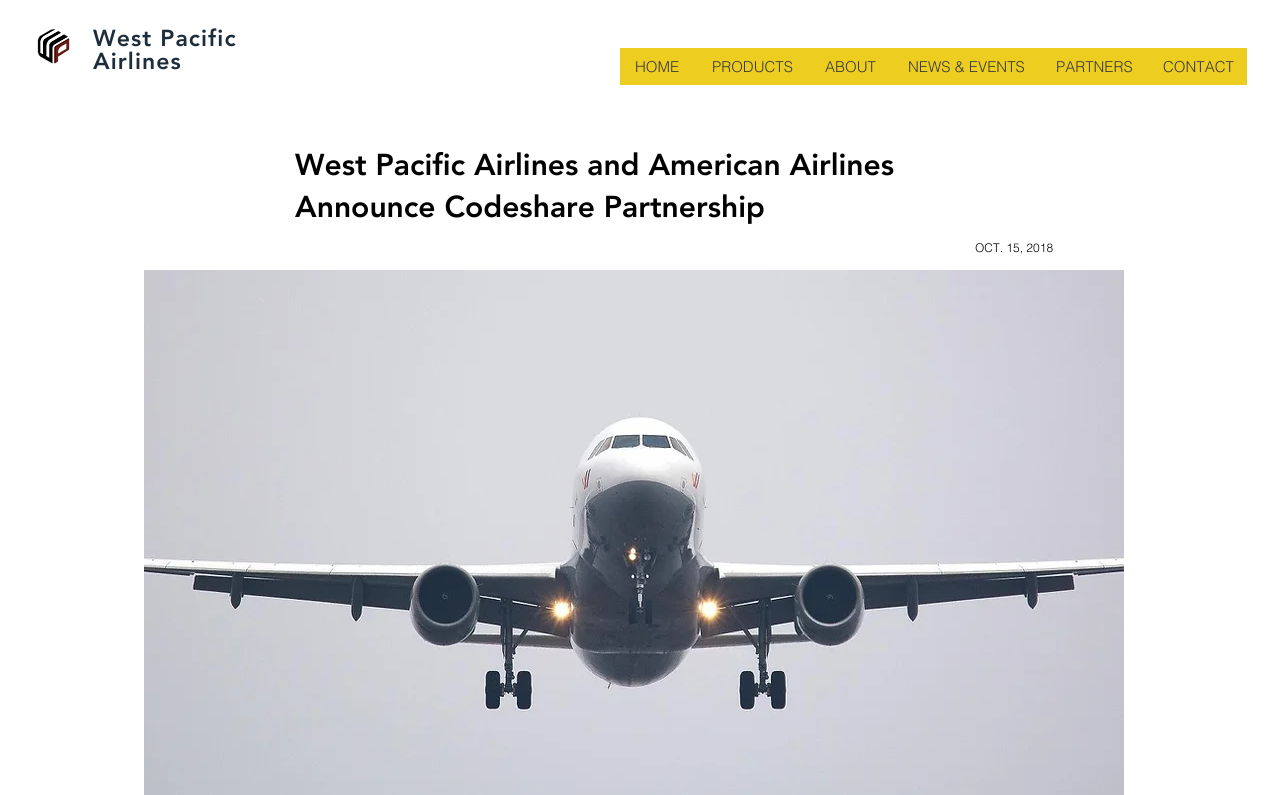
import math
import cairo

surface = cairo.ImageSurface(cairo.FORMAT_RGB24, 1267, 795)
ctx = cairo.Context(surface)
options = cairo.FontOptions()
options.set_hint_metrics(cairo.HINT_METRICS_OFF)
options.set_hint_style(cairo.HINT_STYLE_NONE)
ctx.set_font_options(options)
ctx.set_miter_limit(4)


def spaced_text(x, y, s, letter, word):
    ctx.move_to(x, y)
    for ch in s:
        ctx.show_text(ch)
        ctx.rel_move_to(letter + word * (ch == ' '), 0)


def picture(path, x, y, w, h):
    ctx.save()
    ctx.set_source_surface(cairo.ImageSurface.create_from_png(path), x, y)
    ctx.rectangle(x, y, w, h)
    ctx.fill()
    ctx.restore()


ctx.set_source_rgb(1, 1, 1)
ctx.paint()
picture("img1.png", 37, 29, 33, 35)
ctx.select_font_face("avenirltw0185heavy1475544 Black")
ctx.set_font_size(23)
ctx.set_source_rgb(0.118, 0.176, 0.231)
spaced_text(93, 46, "West Pacific", 1.1, 0)
spaced_text(93, 69, "Airlines", 1.1, 0)
ctx.set_source_rgb(0.929, 0.804, 0.122)
ctx.rectangle(620, 48, 627, 37)
ctx.fill()
ctx.select_font_face("helvetica Light")
ctx.set_font_size(15)
ctx.set_source_rgb(0.231, 0.227, 0.227)
ctx.move_to(635, 72)
ctx.show_text("HOME")
ctx.move_to(712, 72)
ctx.show_text("PRODUCTS")
ctx.move_to(825, 72)
ctx.show_text("ABOUT")
ctx.move_to(908, 72)
ctx.show_text("NEWS & EVENTS")
ctx.move_to(1056, 72)
ctx.show_text("PARTNERS")
ctx.move_to(1163, 72)
ctx.show_text("CONTACT")
ctx.select_font_face("avenirltw0185heavy1475544 Black")
ctx.set_font_size(30)
ctx.set_source_rgb(0, 0, 0)
ctx.move_to(295, 175)
ctx.show_text("West Pacific Airlines and American Airlines")
ctx.move_to(295, 217)
ctx.show_text("Announce Codeshare Partnership")
ctx.select_font_face("helvetica Light")
ctx.set_font_size(12)
ctx.move_to(975, 252)
ctx.show_text("OCT. 15, 2018")
picture("img2.png", 144, 270, 980, 525)
surface.write_to_png("page.png")
